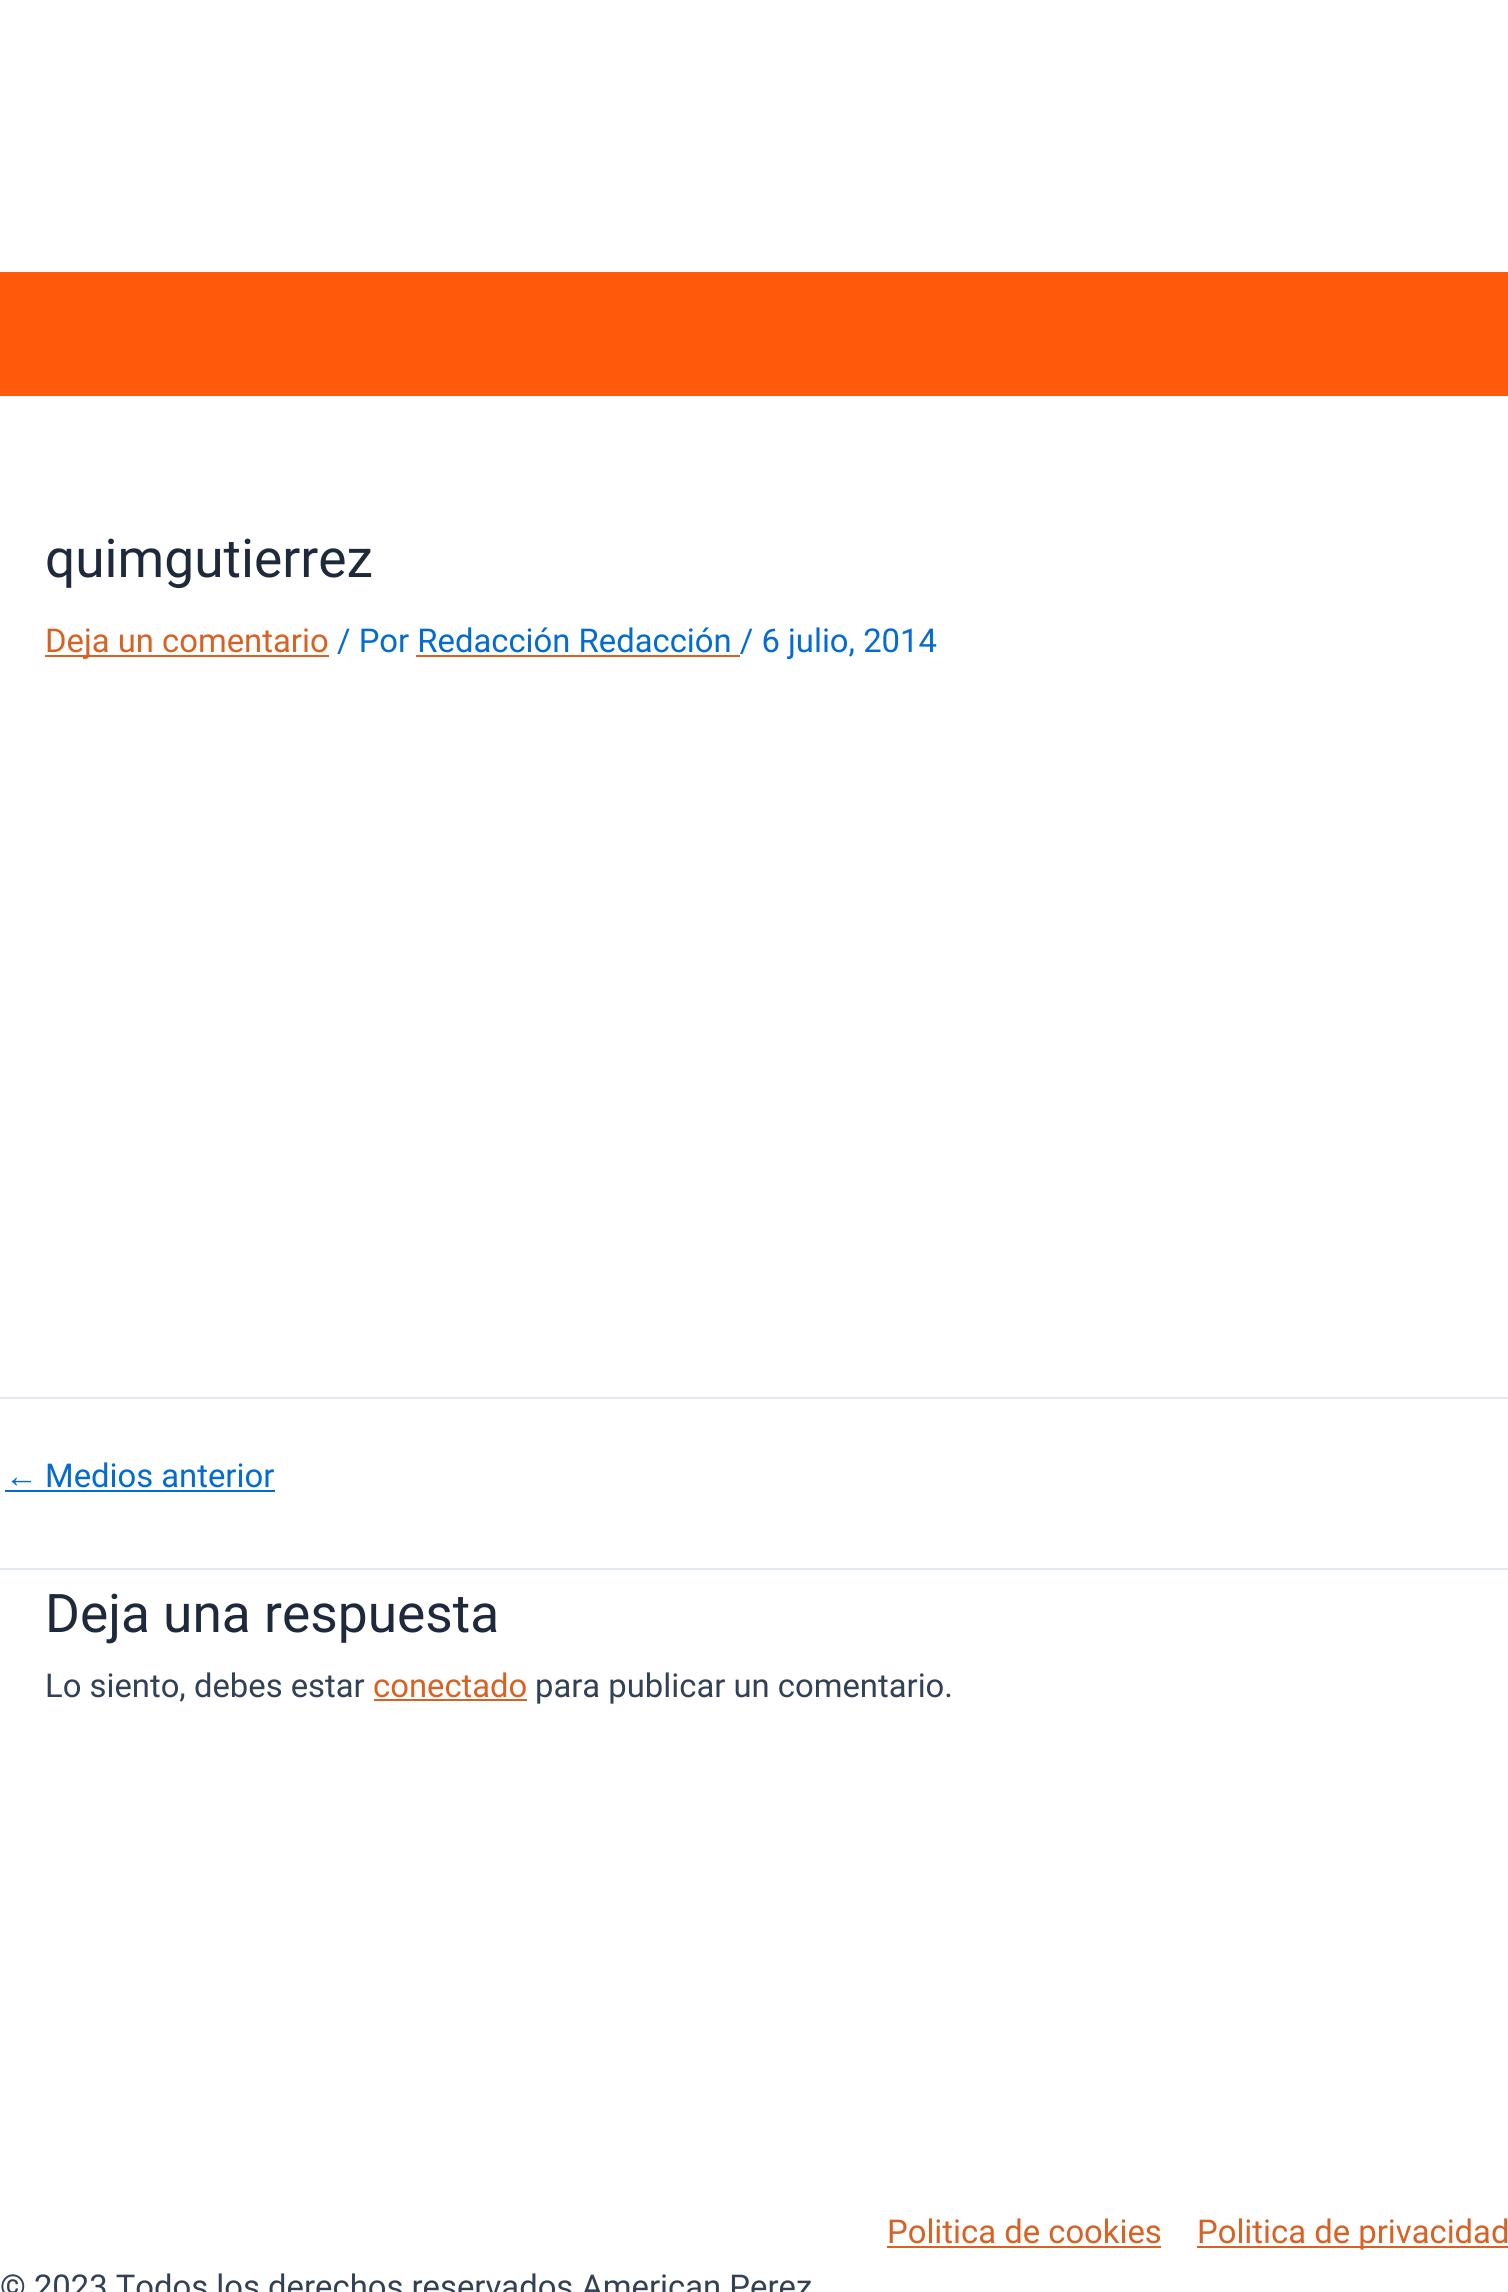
import math
import cairo

surface = cairo.ImageSurface(cairo.FORMAT_RGB24, 1508, 2292)
ctx = cairo.Context(surface)
options = cairo.FontOptions()
options.set_hint_metrics(cairo.HINT_METRICS_OFF)
options.set_hint_style(cairo.HINT_STYLE_NONE)
ctx.set_font_options(options)
ctx.set_miter_limit(4)


ctx.set_source_rgb(1, 1, 1)
ctx.paint()
ctx.set_source_rgb(1, 0.357, 0.043)
ctx.rectangle(0, 272, 1508, 124)
ctx.fill()
ctx.select_font_face("Roboto")
ctx.set_font_size(53.25)
ctx.set_source_rgb(0.118, 0.161, 0.231)
ctx.move_to(45, 577)
ctx.show_text("quimgutierrez")
ctx.set_source_rgb(0.847, 0.384, 0.141)
ctx.rectangle(45, 655, 284, 2)
ctx.fill()
ctx.set_font_size(32.8)
ctx.move_to(45, 652)
ctx.show_text("Deja un comentario")
ctx.set_source_rgb(0.016, 0.42, 0.824)
ctx.move_to(337, 652)
ctx.show_text("/ Por Redacción Redacción / 6 julio, 2014")
ctx.set_source_rgb(0.847, 0.384, 0.141)
ctx.rectangle(416, 655, 324, 2)
ctx.fill()
ctx.set_source_rgb(0.886, 0.91, 0.941)
ctx.rectangle(0, 1397, 1508, 2)
ctx.fill()
ctx.select_font_face("Liberation Sans")
ctx.set_source_rgb(0.016, 0.42, 0.824)
ctx.move_to(5, 1487)
ctx.show_text("←")
ctx.rectangle(5, 1490, 270, 2)
ctx.fill()
ctx.select_font_face("Roboto")
ctx.move_to(45, 1487)
ctx.show_text("Medios anterior")
ctx.set_source_rgb(0.886, 0.91, 0.941)
ctx.rectangle(0, 1568, 1508, 2)
ctx.fill()
ctx.set_font_size(53.25)
ctx.set_source_rgb(0.118, 0.161, 0.231)
ctx.move_to(45, 1632)
ctx.show_text("Deja una respuesta")
ctx.set_font_size(32.8)
ctx.set_source_rgb(0.2, 0.255, 0.333)
ctx.move_to(45, 1697)
ctx.show_text("Lo siento, debes estar")
ctx.set_source_rgb(0.847, 0.384, 0.141)
ctx.move_to(373, 1697)
ctx.show_text("conectado")
ctx.rectangle(374, 1699, 153, 2)
ctx.fill()
ctx.set_source_rgb(0.2, 0.255, 0.333)
ctx.move_to(535, 1697)
ctx.show_text("para publicar un comentario.")
ctx.set_source_rgb(0.847, 0.384, 0.141)
ctx.move_to(887, 2243)
ctx.show_text("Politica de cookies")
ctx.rectangle(887, 2246, 274, 2)
ctx.fill()
ctx.rectangle(1197, 2246, 311, 2)
ctx.fill()
ctx.move_to(1197, 2243)
ctx.show_text("Politica de privacidad")
ctx.set_source_rgb(0.2, 0.255, 0.333)
ctx.move_to(0, 2298)
ctx.show_text("© 2023 Todos los derechos reservados American Perez")
surface.write_to_png("page.png")
